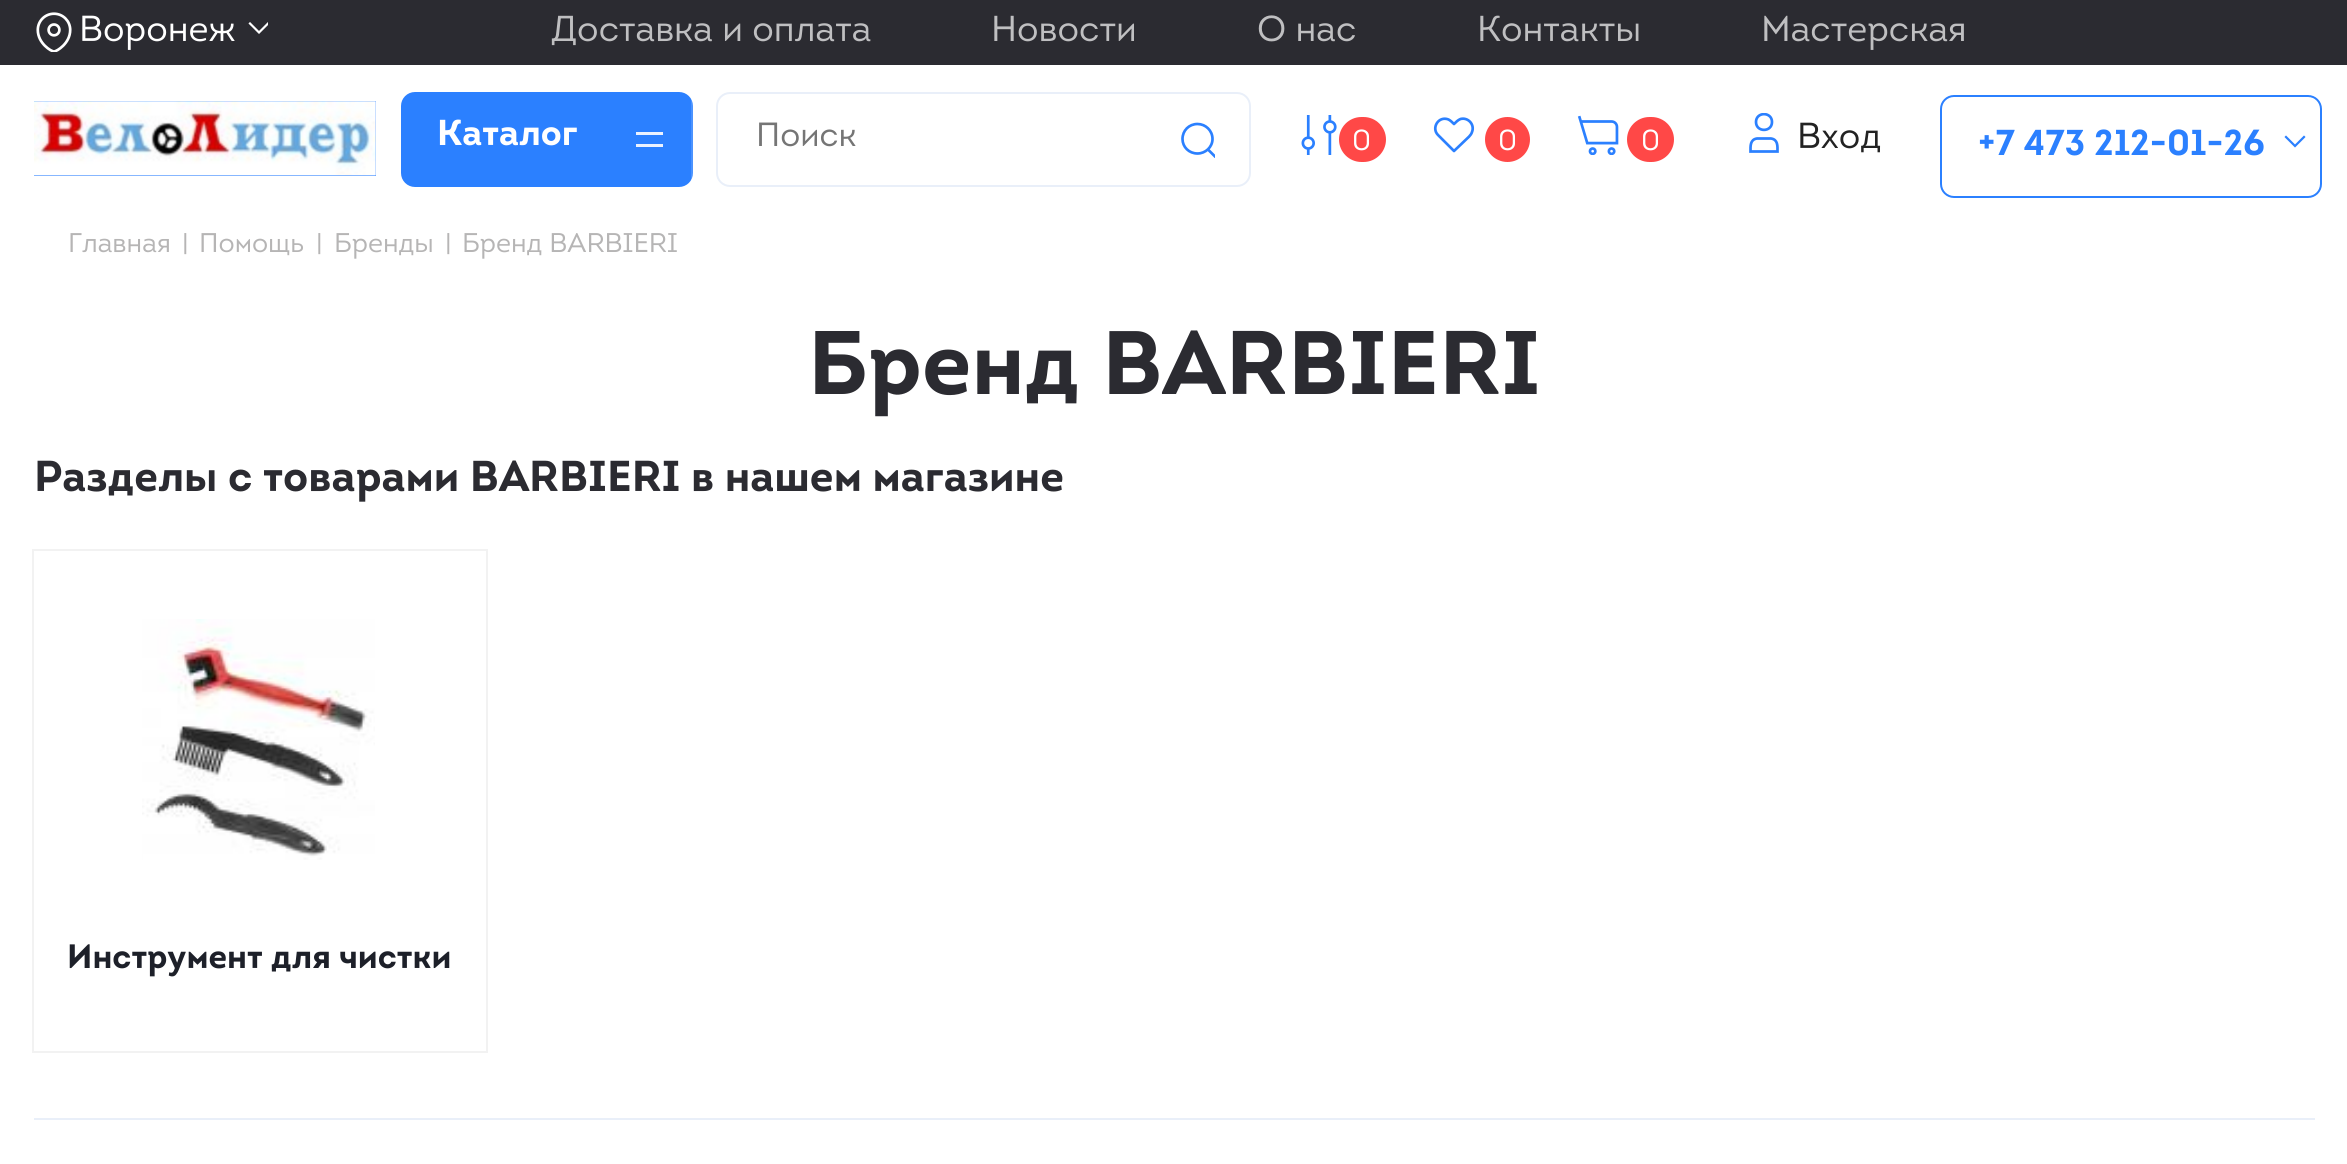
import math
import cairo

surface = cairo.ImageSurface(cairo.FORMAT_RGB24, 2347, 1164)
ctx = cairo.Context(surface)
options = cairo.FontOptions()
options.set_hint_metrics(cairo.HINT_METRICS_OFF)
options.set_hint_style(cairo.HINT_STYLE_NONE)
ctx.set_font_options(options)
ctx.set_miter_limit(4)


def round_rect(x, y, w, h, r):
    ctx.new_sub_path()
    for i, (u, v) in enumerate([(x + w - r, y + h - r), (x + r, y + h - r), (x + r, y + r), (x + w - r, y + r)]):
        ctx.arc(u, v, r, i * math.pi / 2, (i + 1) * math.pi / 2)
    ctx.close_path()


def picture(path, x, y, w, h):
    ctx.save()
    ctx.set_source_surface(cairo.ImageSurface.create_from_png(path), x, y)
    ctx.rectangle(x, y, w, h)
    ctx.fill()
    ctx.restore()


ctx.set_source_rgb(1, 1, 1)
ctx.paint()
ctx.set_source_rgb(0.169, 0.169, 0.192)
ctx.rectangle(0, 0, 2347, 65)
ctx.fill()
picture("img1.png", 36, 12, 36, 40)
ctx.select_font_face("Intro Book")
ctx.set_font_size(36)
ctx.set_source_rgb(1, 1, 1)
ctx.move_to(79, 41)
ctx.show_text("Воронеж")
ctx.save()
ctx.rectangle(239, 9, 29, 38)
ctx.clip()
ctx.new_path()
ctx.move_to(250, 23.5)
ctx.line_to(259, 32.5)
ctx.line_to(268, 23.5)
ctx.set_line_width(2.2)
ctx.set_line_cap(cairo.LINE_CAP_SQUARE)
ctx.stroke()
ctx.restore()
ctx.set_source_rgb(0.749, 0.749, 0.757)
ctx.move_to(551, 41)
ctx.show_text("Доставка и оплата")
ctx.move_to(991, 41)
ctx.show_text("Новости")
ctx.move_to(1257, 41)
ctx.show_text("О нас")
ctx.move_to(1477, 41)
ctx.show_text("Контакты")
ctx.move_to(1761, 41)
ctx.show_text("Мастерская")
ctx.set_source_rgb(0.169, 0.502, 1)
ctx.rectangle(34, 101, 342, 75)
ctx.fill()
picture("img2.png", 34, 101, 342, 75)
round_rect(401, 92, 292, 95, 14)
ctx.fill()
ctx.set_source_rgba(1, 1, 1, 0.15)
ctx.rectangle(691, 99, 2, 81)
ctx.fill()
ctx.select_font_face("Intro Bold", cairo.FONT_SLANT_NORMAL, cairo.FONT_WEIGHT_BOLD)
ctx.set_source_rgb(1, 1, 1)
ctx.move_to(437, 145)
ctx.show_text("Каталог")
ctx.set_source_rgb(0.918, 0.949, 1)
ctx.rectangle(636, 132, 27, 3)
ctx.fill()
ctx.rectangle(636, 144, 27, 3)
ctx.fill()
round_rect(717, 93, 533, 93, 13)
ctx.set_source_rgb(0.914, 0.937, 0.973)
ctx.stroke()
ctx.select_font_face("Intro Book")
ctx.set_font_size(33.5)
ctx.set_source_rgb(0.459, 0.459, 0.459)
ctx.move_to(756, 146)
ctx.show_text("Поиск")
ctx.save()
ctx.rectangle(1179, 122, 36, 36)
ctx.clip()
ctx.new_path()
ctx.move_to(1208, 149.5)
ctx.line_to(1218.5, 160)
ctx.move_to(1197.5, 153.5)
ctx.curve_to(1189, 153.5, 1182.5, 147, 1182.5, 139)
ctx.curve_to(1182.5, 130.5, 1189, 124, 1197.5, 124)
ctx.curve_to(1205.5, 124, 1212.5, 130.5, 1212.5, 139)
ctx.curve_to(1212.5, 147, 1205.5, 153.5, 1197.5, 153.5)
ctx.close_path()
ctx.set_source_rgb(0.169, 0.502, 1)
ctx.set_line_width(2.7)
ctx.stroke()
ctx.restore()
picture("img3.png", 1301, 115, 36, 40)
ctx.set_source_rgb(1, 0.282, 0.278)
round_rect(1339, 117, 47, 45, 22.5)
ctx.fill()
ctx.set_font_size(29)
ctx.set_source_rgb(1, 1, 1)
ctx.move_to(1352, 150)
ctx.show_text("0")
ctx.new_path()
ctx.move_to(1438, 135)
ctx.line_to(1454, 151)
ctx.line_to(1465, 140.5)
ctx.curve_to(1467.5, 138, 1471, 135.5, 1472, 132)
ctx.curve_to(1475, 124.5, 1468, 117, 1460.5, 119)
ctx.curve_to(1458, 120, 1456, 122, 1454, 124)
ctx.curve_to(1452.5, 122.5, 1450.5, 120.5, 1448.5, 119.5)
ctx.curve_to(1438.5, 115.5, 1431, 128, 1438, 135)
ctx.close_path()
ctx.set_source_rgb(0.169, 0.502, 1)
ctx.set_line_width(2.7)
ctx.set_line_join(cairo.LINE_JOIN_ROUND)
ctx.stroke()
ctx.set_source_rgb(1, 0.282, 0.278)
ctx.arc(1507.5, 139.5, 22.5, 0, 2 * math.pi)
ctx.fill()
ctx.set_source_rgb(1, 1, 1)
ctx.move_to(1498, 150)
ctx.show_text("0")
picture("img4.png", 1577, 115, 42, 40)
ctx.set_source_rgb(1, 0.282, 0.278)
round_rect(1627, 117, 47, 45, 22.5)
ctx.fill()
ctx.set_source_rgb(1, 1, 1)
ctx.move_to(1641, 150)
ctx.show_text("0")
ctx.save()
ctx.rectangle(1748, 113, 32, 40)
ctx.clip()
ctx.new_path()
ctx.move_to(1772, 122)
ctx.curve_to(1772, 132.5, 1756, 132.5, 1756, 122)
ctx.curve_to(1756, 111.5, 1772, 111.5, 1772, 122)
ctx.close_path()
ctx.set_source_rgb(0.169, 0.502, 1)
ctx.set_line_cap(cairo.LINE_CAP_SQUARE)
ctx.set_line_join(cairo.LINE_JOIN_MITER)
ctx.stroke()
ctx.restore()
ctx.new_path()
ctx.move_to(1777.5, 151.5)
ctx.line_to(1750.5, 151.5)
ctx.curve_to(1750.5, 146, 1750, 139.5, 1757, 138.5)
ctx.line_to(1771, 138.5)
ctx.curve_to(1778, 139.5, 1777.5, 146, 1777.5, 151.5)
ctx.close_path()
ctx.set_source_rgb(0.169, 0.502, 1)
ctx.set_line_cap(cairo.LINE_CAP_SQUARE)
ctx.set_line_join(cairo.LINE_JOIN_MITER)
ctx.stroke()
ctx.set_font_size(36)
ctx.set_source_rgb(0.133, 0.133, 0.133)
ctx.move_to(1797, 148)
ctx.show_text("Вход")
round_rect(1941, 96, 380, 101, 13)
ctx.set_source_rgb(0.169, 0.502, 1)
ctx.set_line_width(2)
ctx.set_line_cap(cairo.LINE_CAP_BUTT)
ctx.stroke()
ctx.select_font_face("Intro Bold", cairo.FONT_SLANT_NORMAL, cairo.FONT_WEIGHT_BOLD)
ctx.move_to(1978, 155)
ctx.show_text("+7 473 212-01-26")
ctx.new_path()
ctx.move_to(2286, 137)
ctx.line_to(2295, 146)
ctx.line_to(2304, 137)
ctx.set_line_width(2.2)
ctx.set_line_cap(cairo.LINE_CAP_SQUARE)
ctx.stroke()
ctx.select_font_face("Intro Book")
ctx.set_font_size(27)
ctx.set_source_rgb(0.714, 0.71, 0.71)
ctx.move_to(68, 252)
ctx.show_text("Главная")
ctx.move_to(182, 252)
ctx.show_text("|")
ctx.move_to(199, 252)
ctx.show_text("Помощь")
ctx.move_to(316, 252)
ctx.show_text("|")
ctx.move_to(334, 252)
ctx.show_text("Бренды")
ctx.move_to(445, 252)
ctx.show_text("|")
ctx.move_to(462, 252)
ctx.show_text("Бренд BARBIERI")
ctx.select_font_face("Intro Bold", cairo.FONT_SLANT_NORMAL, cairo.FONT_WEIGHT_BOLD)
ctx.set_font_size(90)
ctx.set_source_rgb(0.169, 0.169, 0.192)
ctx.move_to(808, 394)
ctx.show_text("Бренд BARBIERI")
ctx.set_font_size(43.2)
ctx.move_to(34, 491)
ctx.show_text("Разделы с товарами BARBIERI в нашем магазине")
ctx.rectangle(33, 550, 454, 502)
ctx.set_source_rgb(0.949, 0.949, 0.949)
ctx.set_line_width(2)
ctx.set_line_cap(cairo.LINE_CAP_BUTT)
ctx.stroke()
picture("img5.png", 142, 619, 233, 241)
ctx.set_font_size(33.75)
ctx.set_source_rgb(0.114, 0.125, 0.161)
ctx.move_to(67, 968)
ctx.show_text("Инструмент для чистки")
ctx.set_source_rgb(0.914, 0.937, 0.973)
ctx.rectangle(34, 1118, 2281, 2)
ctx.fill()
surface.write_to_png("page.png")
